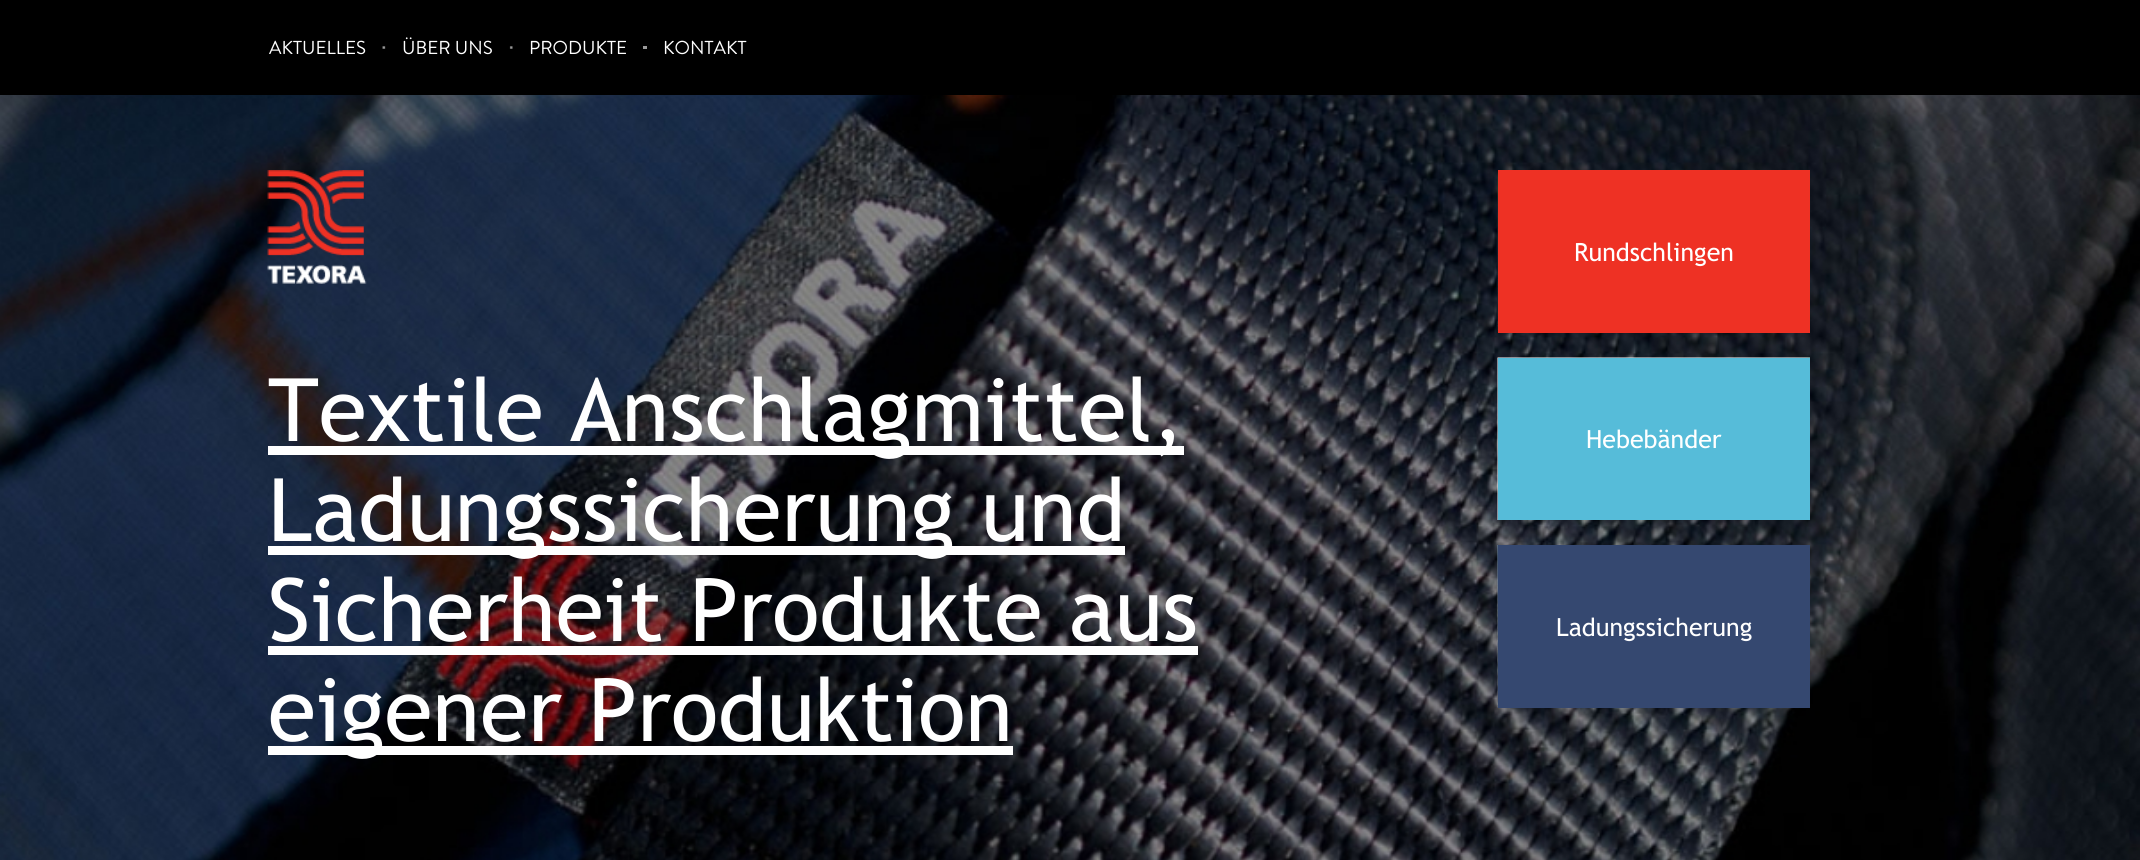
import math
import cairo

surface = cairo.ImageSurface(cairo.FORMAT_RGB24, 2140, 860)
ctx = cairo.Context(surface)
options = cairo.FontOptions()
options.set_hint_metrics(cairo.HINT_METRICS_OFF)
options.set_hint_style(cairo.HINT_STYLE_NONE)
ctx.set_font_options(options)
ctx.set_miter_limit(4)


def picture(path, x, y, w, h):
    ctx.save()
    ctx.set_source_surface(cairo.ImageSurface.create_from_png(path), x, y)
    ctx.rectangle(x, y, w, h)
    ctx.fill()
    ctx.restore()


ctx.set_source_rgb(1, 1, 1)
ctx.paint()
picture("img1.png", 0, 95, 2140, 765)
ctx.set_source_rgb(0, 0, 0)
ctx.rectangle(0, 0, 2140, 95)
ctx.fill()
ctx.select_font_face("Brandon Grotesque")
ctx.set_font_size(18.75)
ctx.set_source_rgb(1, 1, 1)
ctx.move_to(269, 54)
ctx.show_text("AKTUELLES")
picture("img2.png", 382, 46, 4, 3)
ctx.move_to(402, 54)
ctx.show_text("ÜBER UNS")
picture("img3.png", 509, 46, 4, 3)
ctx.move_to(529, 54)
ctx.show_text("PRODUKTE")
ctx.set_source_rgb(0.6, 0.6, 0.6)
ctx.rectangle(643, 46, 4, 3)
ctx.fill()
ctx.set_source_rgb(1, 1, 1)
ctx.move_to(663, 54)
ctx.show_text("KONTAKT")
picture("img4.png", 267, 170, 100, 114)
ctx.rectangle(268, 446, 916, 9)
ctx.fill()
ctx.select_font_face("Trebuchet MS")
ctx.set_font_size(87.5)
ctx.move_to(268, 441)
ctx.show_text("Textile Anschlagmittel,")
ctx.rectangle(268, 546, 857, 9)
ctx.fill()
ctx.move_to(268, 541)
ctx.show_text("Ladungssicherung und")
ctx.move_to(268, 641)
ctx.show_text("Sicherheit Produkte aus")
ctx.rectangle(268, 646, 930, 9)
ctx.fill()
ctx.rectangle(268, 746, 745, 9)
ctx.fill()
ctx.move_to(268, 741)
ctx.show_text("eigener Produktion")
picture("img5.png", 1497, 170, 1, 163)
ctx.set_source_rgb(0.933, 0.192, 0.141)
ctx.rectangle(1498, 170, 312, 163)
ctx.fill()
ctx.set_font_size(25)
ctx.set_source_rgb(1, 1, 1)
ctx.move_to(1574, 261)
ctx.show_text("Rundschlingen")
picture("img6.png", 1497, 357, 313, 163)
ctx.set_source_rgb(0.337, 0.737, 0.851)
ctx.rectangle(1498, 358, 312, 162)
ctx.fill()
ctx.set_source_rgb(1, 1, 1)
ctx.move_to(1586, 448)
ctx.show_text("Hebebänder")
picture("img7.png", 1497, 545, 1, 163)
ctx.set_source_rgb(0.208, 0.282, 0.439)
ctx.rectangle(1498, 545, 312, 163)
ctx.fill()
ctx.set_source_rgb(1, 1, 1)
ctx.move_to(1556, 636)
ctx.show_text("Ladungssicherung")
surface.write_to_png("page.png")
